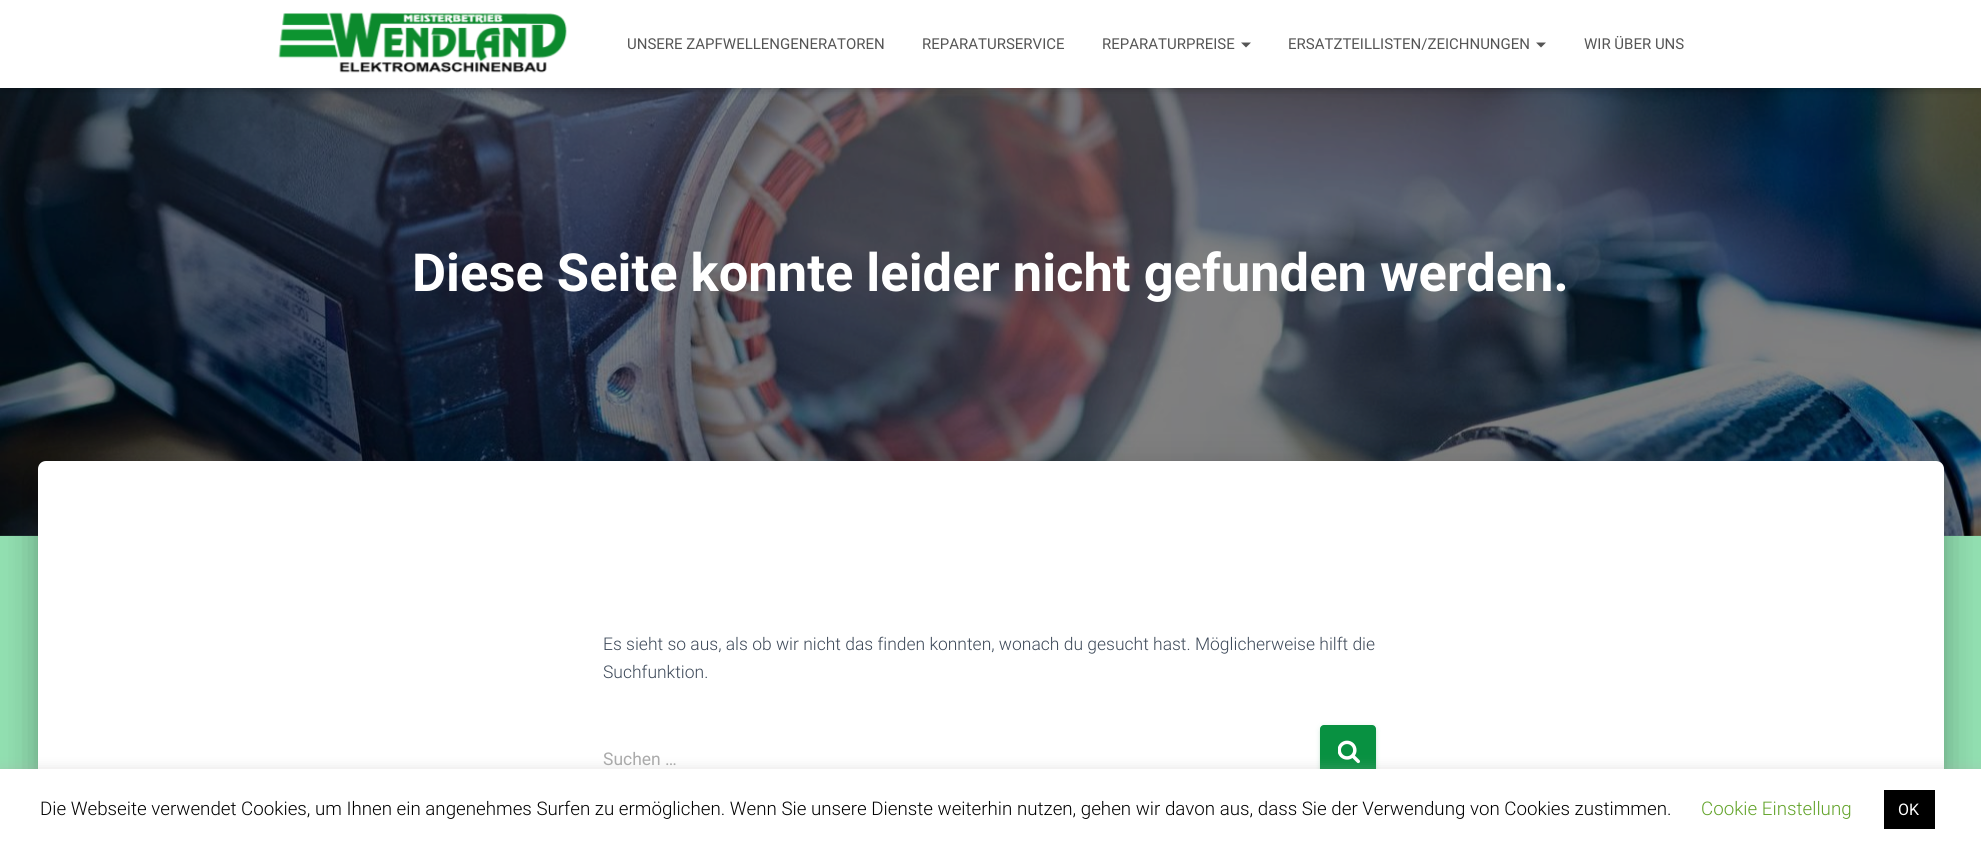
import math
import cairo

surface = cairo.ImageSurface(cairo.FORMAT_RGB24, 1981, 849)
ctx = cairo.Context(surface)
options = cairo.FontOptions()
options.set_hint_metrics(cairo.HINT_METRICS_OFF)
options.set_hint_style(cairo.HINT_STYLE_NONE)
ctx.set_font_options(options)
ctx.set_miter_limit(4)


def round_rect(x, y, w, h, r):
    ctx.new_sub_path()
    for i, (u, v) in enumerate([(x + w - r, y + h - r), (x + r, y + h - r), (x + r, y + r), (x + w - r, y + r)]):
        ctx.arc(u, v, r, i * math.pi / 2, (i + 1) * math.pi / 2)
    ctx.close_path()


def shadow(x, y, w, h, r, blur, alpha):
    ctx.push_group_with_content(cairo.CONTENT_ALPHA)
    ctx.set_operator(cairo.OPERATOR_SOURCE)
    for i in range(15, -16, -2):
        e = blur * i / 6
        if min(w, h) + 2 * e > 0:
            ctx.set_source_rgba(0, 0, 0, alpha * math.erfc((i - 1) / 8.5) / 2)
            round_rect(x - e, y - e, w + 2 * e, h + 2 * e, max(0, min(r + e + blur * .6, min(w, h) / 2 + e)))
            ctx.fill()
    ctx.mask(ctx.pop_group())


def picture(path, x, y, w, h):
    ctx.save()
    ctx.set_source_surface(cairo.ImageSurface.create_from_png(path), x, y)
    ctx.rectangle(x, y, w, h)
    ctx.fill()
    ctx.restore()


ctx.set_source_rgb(0.573, 0.878, 0.694)
ctx.paint()
picture("img2.png", 0, 88, 1981, 448)
ctx.set_source_rgb(0, 0, 0)
shadow(3, 8, 1976, 82, 0, 3, 0.1)
shadow(0, 1, 1981, 88, 0, 6, 0.12)
shadow(8, 9, 1966, 72, 0, 6, 0.42)
ctx.set_source_rgb(1, 1, 1)
ctx.rectangle(0, 0, 1981, 88)
ctx.fill()
picture("img1.png", 278, 12, 289, 61)
ctx.select_font_face("Roboto")
ctx.set_font_size(15)
ctx.set_source_rgb(0.333, 0.333, 0.333)
ctx.move_to(627, 49)
ctx.show_text("UNSERE ZAPFWELLENGENERATOREN")
ctx.move_to(922, 49)
ctx.show_text("REPARATURSERVICE")
ctx.move_to(1102, 49)
ctx.show_text("REPARATURPREISE")
ctx.new_path()
ctx.move_to(1241, 42.5)
ctx.line_to(1251, 42.5)
ctx.line_to(1246, 47.5)
ctx.close_path()
ctx.fill()
ctx.move_to(1288, 49)
ctx.show_text("ERSATZTEILLISTEN/ZEICHNUNGEN")
ctx.new_path()
ctx.move_to(1536, 42.5)
ctx.line_to(1546, 42.5)
ctx.line_to(1541, 47.5)
ctx.close_path()
ctx.fill()
ctx.move_to(1584, 49)
ctx.show_text("WIR ÜBER UNS")
ctx.select_font_face("Roboto", cairo.FONT_SLANT_NORMAL, cairo.FONT_WEIGHT_BOLD)
ctx.set_font_size(52.5)
ctx.set_source_rgb(1, 1, 1)
ctx.move_to(412, 291)
ctx.show_text("Diese Seite konnte leider nicht gefunden werden.")
ctx.set_source_rgb(0, 0, 0)
shadow(44, 478, 1894, 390, 1, 6, 0.2)
shadow(31, 463, 1919, 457, 14, 19, 0.12)
shadow(35, 479, 1911, 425, 10, 15, 0.14)
ctx.set_source_rgb(1, 1, 1)
ctx.new_path()
ctx.move_to(46, 461)
ctx.line_to(1936, 461)
ctx.curve_to(1940.5, 461, 1944, 464.5, 1944, 469)
ctx.line_to(1944, 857)
ctx.line_to(38, 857)
ctx.line_to(38, 469)
ctx.curve_to(38, 464.5, 41.5, 461, 46, 461)
ctx.close_path()
ctx.fill()
ctx.select_font_face("Roboto Light")
ctx.set_font_size(17.5)
ctx.set_source_rgb(0.235, 0.282, 0.345)
ctx.move_to(603, 650)
ctx.show_text("Es sieht so aus, als ob wir nicht das finden konnten, wonach du gesucht hast. Möglicherweise hilft die")
ctx.move_to(603, 678)
ctx.show_text("Suchfunktion.")
ctx.select_font_face("Roboto")
ctx.set_source_rgb(0.667, 0.667, 0.667)
ctx.move_to(603, 765)
ctx.show_text("Suchen …")
ctx.set_source_rgb(0.035, 0.569, 0.255)
shadow(1320, 726, 56, 54, 4, 3, 0.12)
shadow(1320, 728, 56, 53, 4, 1, 0.14)
ctx.set_source_rgb(0.035, 0.569, 0.255)
round_rect(1320, 725, 56, 54, 4)
ctx.fill()
picture("img3.png", 1338, 740, 22, 24)
ctx.set_source_rgb(0.675, 0.671, 0.671)
shadow(0, 768, 1981, 81, 0, 6, 0.3)
ctx.set_source_rgb(1, 1, 1)
ctx.rectangle(0, 769, 1981, 80)
ctx.fill()
ctx.select_font_face("Roboto Light")
ctx.set_font_size(18.75)
ctx.set_source_rgb(0, 0, 0)
ctx.move_to(40, 815)
ctx.show_text("Die Webseite verwendet Cookies, um Ihnen ein angenehmes Surfen zu ermöglichen. Wenn Sie unsere Dienste weiterhin nutzen, gehen wir davon aus, dass Sie der Verwendung von Cookies zustimmen.")
ctx.set_source_rgb(0.384, 0.639, 0.161)
ctx.move_to(1701, 815)
ctx.show_text("Cookie Einstellung")
ctx.set_source_rgb(0, 0, 0)
ctx.rectangle(1884, 790, 51, 39)
ctx.fill()
ctx.select_font_face("Roboto")
ctx.set_font_size(16)
ctx.set_source_rgb(1, 1, 1)
ctx.move_to(1898, 815)
ctx.show_text("OK")
surface.write_to_png("page.png")
